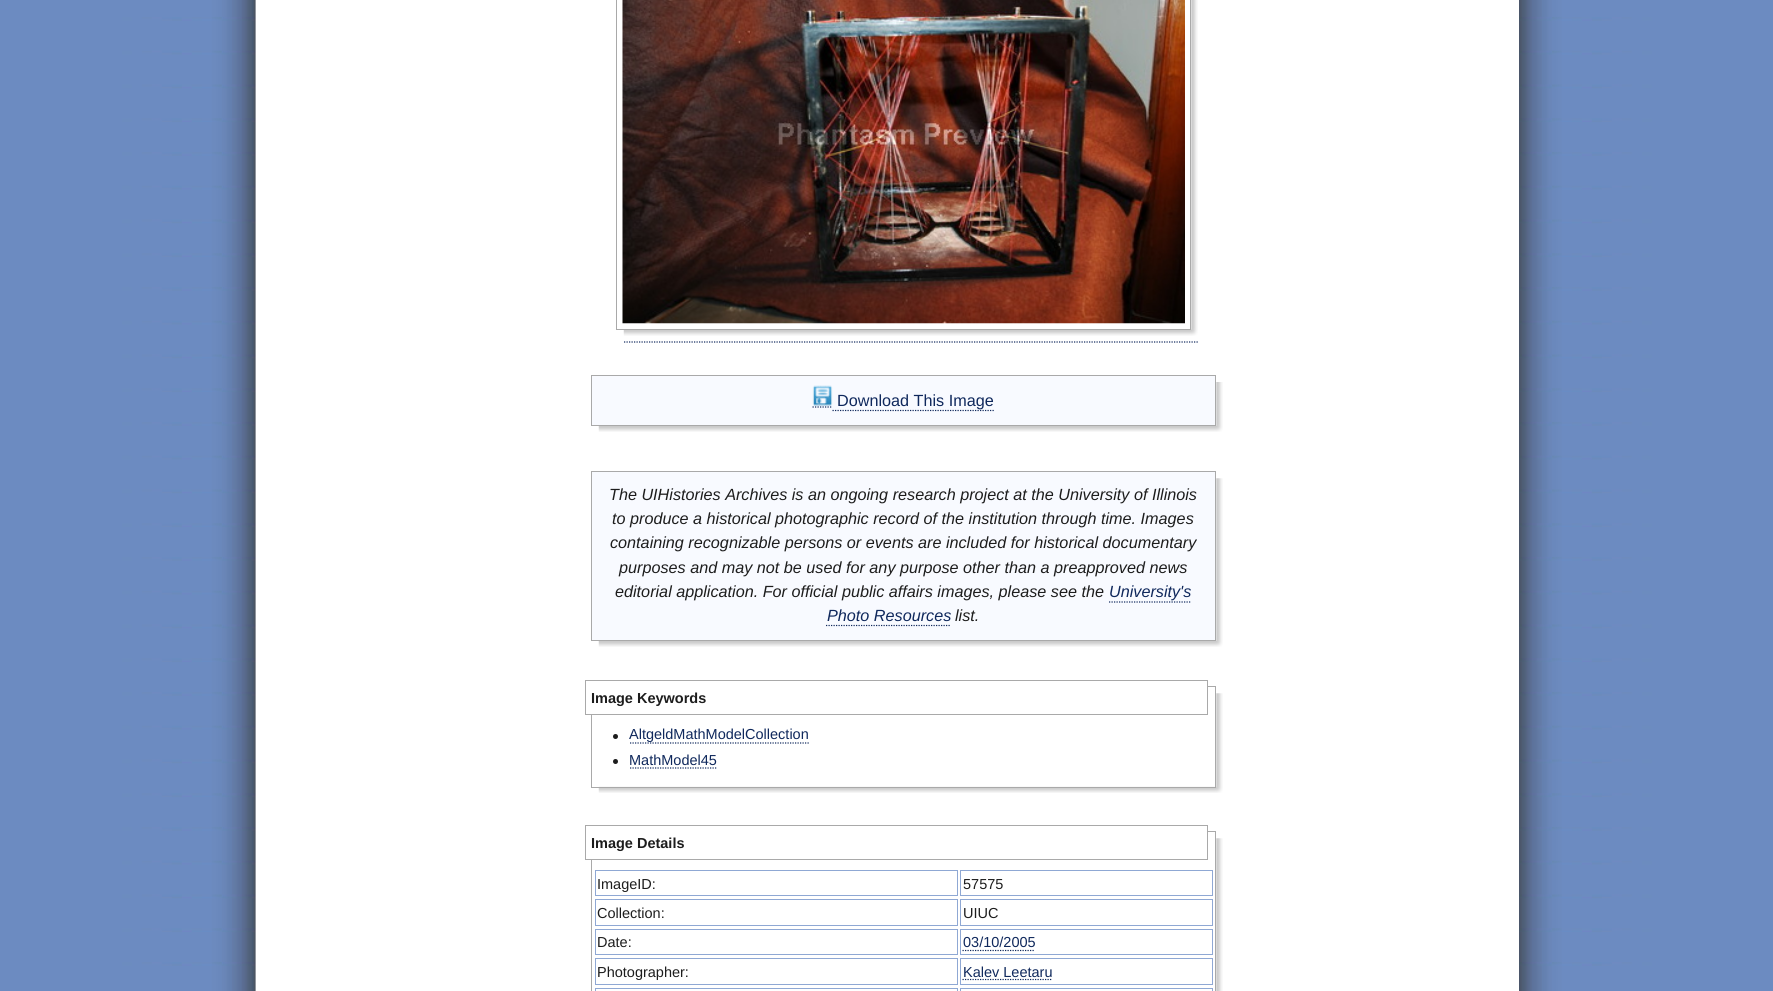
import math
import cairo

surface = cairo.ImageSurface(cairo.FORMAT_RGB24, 1773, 991)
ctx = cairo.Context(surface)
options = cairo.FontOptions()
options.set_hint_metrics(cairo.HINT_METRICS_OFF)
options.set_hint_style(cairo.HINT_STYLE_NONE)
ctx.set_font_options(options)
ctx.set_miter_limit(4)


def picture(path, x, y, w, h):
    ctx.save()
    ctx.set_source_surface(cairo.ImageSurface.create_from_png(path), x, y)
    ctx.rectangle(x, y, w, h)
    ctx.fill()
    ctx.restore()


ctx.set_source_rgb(1, 1, 1)
ctx.paint()
picture("img1.png", 0, 0, 1773, 991)
ctx.set_source_rgb(1, 1, 1)
ctx.rectangle(256, 0, 1263, 991)
ctx.fill()
picture("img2.png", 623, 0, 575, 336)
ctx.rectangle(616.5, -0.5, 574, 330)
ctx.set_source_rgb(0.663, 0.663, 0.663)
ctx.set_line_width(1)
ctx.stroke()
picture("img3.png", 622, 0, 563, 324)
ctx.new_path()
ctx.move_to(624, 342)
ctx.line_to(1199, 342)
ctx.set_source_rgb(0.059, 0.157, 0.361)
ctx.set_line_width(1.2)
ctx.set_dash([1.25, 1.25])
ctx.stroke()
picture("img4.png", 598, 382, 625, 50)
ctx.set_source_rgb(0.969, 0.98, 1)
ctx.rectangle(591.5, 375.5, 624, 50)
ctx.fill_preserve()
ctx.set_source_rgb(0.663, 0.663, 0.663)
ctx.set_line_width(1)
ctx.set_dash([])
ctx.stroke()
picture("img5.png", 812, 385, 21, 21)
ctx.new_path()
ctx.move_to(832.5, 410.5)
ctx.line_to(994, 410.5)
ctx.set_source_rgb(0.059, 0.157, 0.361)
ctx.set_line_width(1.2)
ctx.set_dash([1.25, 1.25])
ctx.stroke()
ctx.select_font_face("Liberation Sans")
ctx.set_font_size(16.2)
ctx.move_to(837, 406)
ctx.show_text("Download This Image")
ctx.new_path()
ctx.move_to(812.5, 407)
ctx.line_to(832.5, 407)
ctx.stroke()
picture("img6.png", 598, 478, 625, 169)
ctx.set_source_rgb(0.969, 0.98, 1)
ctx.rectangle(591.5, 471.5, 624, 169)
ctx.fill_preserve()
ctx.set_source_rgb(0.663, 0.663, 0.663)
ctx.set_line_width(1)
ctx.set_dash([])
ctx.stroke()
ctx.select_font_face("Liberation Sans", cairo.FONT_SLANT_ITALIC)
ctx.set_source_rgb(0.114, 0.114, 0.114)
ctx.move_to(609, 500)
ctx.show_text("The UIHistories Archives is an ongoing research project at the University of Illinois")
ctx.move_to(612, 524)
ctx.show_text("to produce a historical photographic record of the institution through time. Images")
ctx.move_to(610, 548)
ctx.show_text("containing recognizable persons or events are included for historical documentary")
ctx.move_to(619, 573)
ctx.show_text("purposes and may not be used for any purpose other than a preapproved news")
ctx.move_to(615, 597)
ctx.show_text("editorial application. For official public affairs images, please see the")
ctx.set_source_rgb(0.059, 0.157, 0.361)
ctx.move_to(1109, 597)
ctx.show_text("University's")
ctx.new_path()
ctx.move_to(1109, 602)
ctx.line_to(1191, 602)
ctx.set_line_width(1.2)
ctx.set_dash([1.25, 1.25])
ctx.stroke()
ctx.move_to(827, 621)
ctx.show_text("Photo Resources")
ctx.new_path()
ctx.move_to(826, 625.5)
ctx.line_to(951, 625.5)
ctx.stroke()
ctx.set_source_rgb(0.114, 0.114, 0.114)
ctx.move_to(955, 621)
ctx.show_text("list.")
picture("img7.png", 598, 693, 625, 100)
ctx.rectangle(591.5, 686.5, 624, 101)
ctx.set_source_rgb(0.663, 0.663, 0.663)
ctx.set_line_width(1)
ctx.set_dash([])
ctx.stroke()
ctx.set_source_rgb(1, 1, 1)
ctx.rectangle(591, 686, 616, 28)
ctx.fill()
ctx.rectangle(585.5, 680.5, 622, 34)
ctx.set_source_rgb(0.663, 0.663, 0.663)
ctx.stroke()
ctx.select_font_face("Liberation Sans", cairo.FONT_SLANT_NORMAL, cairo.FONT_WEIGHT_BOLD)
ctx.set_font_size(14.5)
ctx.set_source_rgb(0.114, 0.114, 0.114)
ctx.move_to(591, 703)
ctx.show_text("Image Keywords")
ctx.new_path()
ctx.arc(615.5, 736.5, 2.5, 0, 2 * math.pi)
ctx.fill()
ctx.select_font_face("Liberation Sans")
ctx.set_source_rgb(0.059, 0.157, 0.361)
ctx.move_to(629, 739)
ctx.show_text("AltgeldMathModelCollection")
ctx.new_path()
ctx.move_to(630, 743)
ctx.line_to(810, 743)
ctx.set_line_width(1.2)
ctx.set_dash([1.25, 1.25])
ctx.stroke()
ctx.set_source_rgb(0.114, 0.114, 0.114)
ctx.arc(615.5, 761.5, 2.5, 0, 2 * math.pi)
ctx.fill()
ctx.set_source_rgb(0.059, 0.157, 0.361)
ctx.move_to(629, 765)
ctx.show_text("MathModel45")
ctx.new_path()
ctx.move_to(630, 768)
ctx.line_to(717.5, 768)
ctx.stroke()
picture("img8.png", 1216, 838, 7, 153)
ctx.rectangle(591.5, 831.5, 624, 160)
ctx.set_source_rgb(0.663, 0.663, 0.663)
ctx.set_line_width(1)
ctx.set_dash([])
ctx.stroke()
ctx.set_source_rgb(1, 1, 1)
ctx.rectangle(591, 831, 616, 28)
ctx.fill()
ctx.rectangle(585.5, 825.5, 622, 34)
ctx.set_source_rgb(0.663, 0.663, 0.663)
ctx.stroke()
ctx.select_font_face("Liberation Sans", cairo.FONT_SLANT_NORMAL, cairo.FONT_WEIGHT_BOLD)
ctx.set_source_rgb(0.114, 0.114, 0.114)
ctx.move_to(591, 848)
ctx.show_text("Image Details")
ctx.rectangle(595.5, 870.5, 362, 25)
ctx.set_source_rgb(0.561, 0.659, 0.831)
ctx.stroke()
ctx.select_font_face("Liberation Sans")
ctx.set_source_rgb(0.114, 0.114, 0.114)
ctx.move_to(597, 889)
ctx.show_text("ImageID:")
ctx.rectangle(960.5, 870.5, 252, 25)
ctx.set_source_rgb(0.561, 0.659, 0.831)
ctx.stroke()
ctx.set_source_rgb(0.114, 0.114, 0.114)
ctx.move_to(963, 889)
ctx.show_text("57575")
ctx.rectangle(595.5, 899.5, 362, 26)
ctx.set_source_rgb(0.561, 0.659, 0.831)
ctx.stroke()
ctx.set_source_rgb(0.114, 0.114, 0.114)
ctx.move_to(597, 918)
ctx.show_text("Collection:")
ctx.rectangle(960.5, 899.5, 252, 26)
ctx.set_source_rgb(0.561, 0.659, 0.831)
ctx.stroke()
ctx.set_source_rgb(0.114, 0.114, 0.114)
ctx.move_to(963, 918)
ctx.show_text("UIUC")
ctx.rectangle(595.5, 929.5, 362, 25)
ctx.set_source_rgb(0.561, 0.659, 0.831)
ctx.stroke()
ctx.set_source_rgb(0.114, 0.114, 0.114)
ctx.move_to(597, 947)
ctx.show_text("Date:")
ctx.rectangle(960.5, 929.5, 252, 25)
ctx.set_source_rgb(0.561, 0.659, 0.831)
ctx.stroke()
ctx.set_source_rgb(0.059, 0.157, 0.361)
ctx.move_to(963, 947)
ctx.show_text("03/10/2005")
ctx.new_path()
ctx.move_to(962.5, 950.5)
ctx.line_to(1035, 950.5)
ctx.set_line_width(1.2)
ctx.set_dash([1.25, 1.25])
ctx.stroke()
ctx.rectangle(595.5, 958.5, 362, 26)
ctx.set_source_rgb(0.561, 0.659, 0.831)
ctx.set_line_width(1)
ctx.set_dash([])
ctx.stroke()
ctx.set_source_rgb(0.114, 0.114, 0.114)
ctx.move_to(597, 977)
ctx.show_text("Photographer:")
ctx.rectangle(960.5, 958.5, 252, 26)
ctx.set_source_rgb(0.561, 0.659, 0.831)
ctx.stroke()
ctx.set_source_rgb(0.059, 0.157, 0.361)
ctx.move_to(963, 977)
ctx.show_text("Kalev Leetaru")
ctx.new_path()
ctx.move_to(962.5, 979.5)
ctx.line_to(1052.5, 979.5)
ctx.set_line_width(1.2)
ctx.set_dash([1.25, 1.25])
ctx.stroke()
ctx.rectangle(595.5, 988.5, 362, 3)
ctx.set_source_rgb(0.561, 0.659, 0.831)
ctx.set_line_width(1)
ctx.set_dash([])
ctx.stroke()
ctx.rectangle(960.5, 988.5, 252, 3)
ctx.stroke()
surface.write_to_png("page.png")
